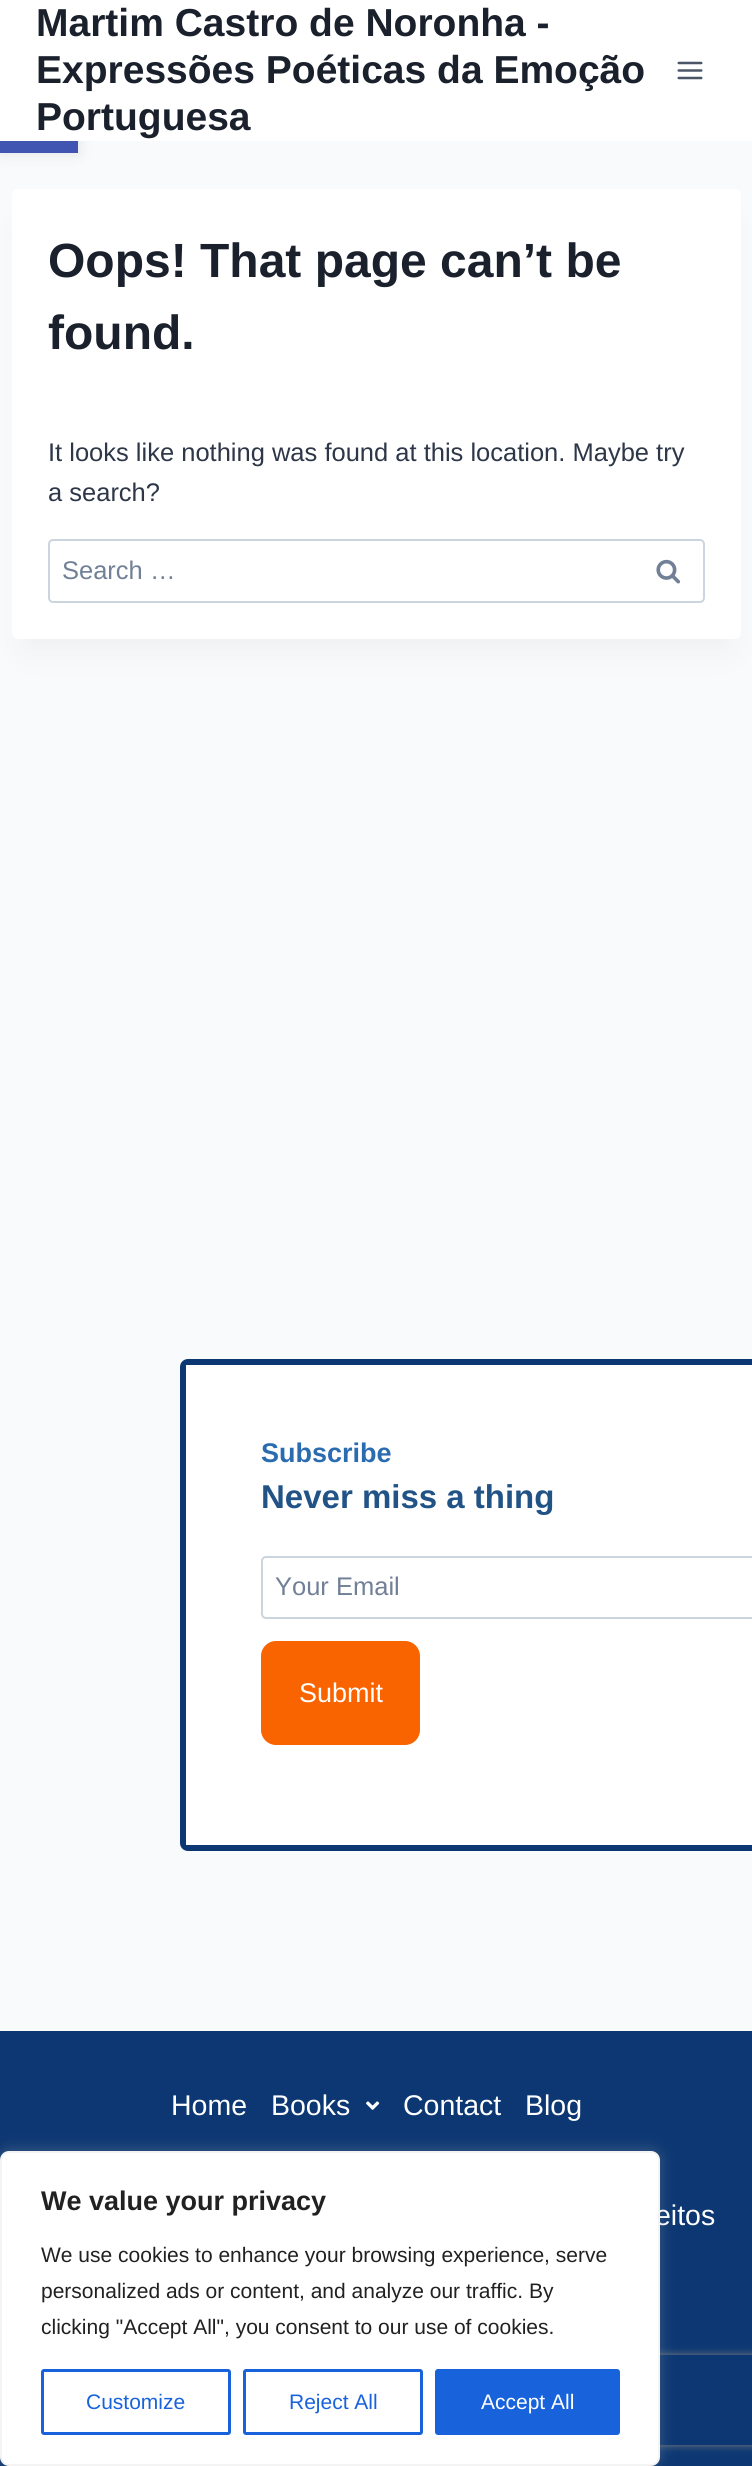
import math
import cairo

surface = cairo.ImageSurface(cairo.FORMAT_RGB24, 752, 2466)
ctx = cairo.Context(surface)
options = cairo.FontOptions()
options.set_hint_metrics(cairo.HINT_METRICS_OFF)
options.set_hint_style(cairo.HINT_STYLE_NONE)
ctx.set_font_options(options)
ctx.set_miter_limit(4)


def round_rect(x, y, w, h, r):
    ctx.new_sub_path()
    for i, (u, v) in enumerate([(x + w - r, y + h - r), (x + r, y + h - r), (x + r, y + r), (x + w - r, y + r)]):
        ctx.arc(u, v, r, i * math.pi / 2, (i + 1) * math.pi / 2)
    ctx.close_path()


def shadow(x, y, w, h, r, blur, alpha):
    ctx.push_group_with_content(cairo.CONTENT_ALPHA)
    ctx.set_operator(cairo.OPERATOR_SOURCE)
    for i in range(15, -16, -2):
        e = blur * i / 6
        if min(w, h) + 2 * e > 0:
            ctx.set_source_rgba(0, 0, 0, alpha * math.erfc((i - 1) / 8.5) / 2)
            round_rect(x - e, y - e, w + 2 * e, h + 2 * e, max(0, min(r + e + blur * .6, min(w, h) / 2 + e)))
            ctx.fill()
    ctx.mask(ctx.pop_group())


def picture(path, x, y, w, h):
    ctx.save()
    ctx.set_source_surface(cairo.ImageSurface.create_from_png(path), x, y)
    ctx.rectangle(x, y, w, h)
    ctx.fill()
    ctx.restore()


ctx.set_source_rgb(0.969, 0.98, 0.988)
ctx.paint()
ctx.set_source_rgb(0, 0, 0)
shadow(0, 75, 78, 78, 0, 7.5, 0.1)
ctx.set_source_rgb(1, 1, 1)
ctx.rectangle(0, 0, 752, 141)
ctx.fill()
ctx.select_font_face("Liberation Sans", cairo.FONT_SLANT_NORMAL, cairo.FONT_WEIGHT_BOLD)
ctx.set_font_size(39)
ctx.set_source_rgb(0.102, 0.125, 0.173)
ctx.move_to(36, 36)
ctx.show_text("Martim Castro de Noronha -")
ctx.move_to(36, 83)
ctx.show_text("Expressões Poéticas da Emoção")
ctx.move_to(36, 130)
ctx.show_text("Portuguesa")
picture("img1.png", 677, 61, 26, 19)
ctx.set_source_rgb(0, 0, 0)
shadow(27, 227, 699, 420, 0, 19, 0.05)
ctx.set_source_rgb(1, 1, 1)
round_rect(12, 189, 729, 450, 6)
ctx.fill()
ctx.set_font_size(48)
ctx.set_source_rgb(0.102, 0.125, 0.173)
ctx.move_to(48, 277)
ctx.show_text("Oops! That page can’t be")
ctx.move_to(48, 349)
ctx.show_text("found.")
ctx.select_font_face("Liberation Sans")
ctx.set_font_size(25.5)
ctx.set_source_rgb(0.176, 0.216, 0.282)
ctx.move_to(48, 461)
ctx.show_text("It looks like nothing was found at this location. Maybe try")
ctx.move_to(48, 501)
ctx.show_text("a search?")
round_rect(49, 540, 655, 62, 4)
ctx.set_source_rgb(0.796, 0.835, 0.878)
ctx.stroke()
ctx.set_source_rgb(0.443, 0.502, 0.588)
ctx.move_to(62, 579)
ctx.show_text("Search …")
picture("img2.png", 656, 559, 25, 25)
round_rect(183, 1362, 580, 486, 5)
ctx.set_source_rgb(0.047, 0.216, 0.447)
ctx.set_line_width(6)
ctx.stroke()
ctx.set_source_rgb(1, 1, 1)
ctx.rectangle(186, 1365, 566, 480)
ctx.fill()
ctx.select_font_face("Liberation Sans", cairo.FONT_SLANT_NORMAL, cairo.FONT_WEIGHT_BOLD)
ctx.set_font_size(27)
ctx.set_source_rgb(0.169, 0.424, 0.69)
ctx.move_to(261, 1462)
ctx.show_text("Subscribe")
ctx.set_font_size(33)
ctx.set_source_rgb(0.129, 0.325, 0.529)
ctx.move_to(261, 1508)
ctx.show_text("Never miss a thing")
round_rect(262, 1557, 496, 61, 4)
ctx.set_source_rgb(0.796, 0.835, 0.878)
ctx.set_line_width(2)
ctx.stroke()
ctx.select_font_face("Liberation Sans")
ctx.set_font_size(25.5)
ctx.set_source_rgb(0.443, 0.502, 0.588)
ctx.move_to(275, 1595)
ctx.show_text("Your Email")
ctx.set_source_rgb(0.976, 0.392, 0)
round_rect(261, 1641, 159, 104, 15)
ctx.fill()
ctx.set_font_size(27)
ctx.set_source_rgb(1, 1, 1)
ctx.move_to(299, 1702)
ctx.show_text("Submit")
ctx.set_source_rgb(0.047, 0.216, 0.447)
ctx.rectangle(0, 2031, 752, 435)
ctx.fill()
ctx.set_font_size(28.5)
ctx.set_source_rgb(1, 1, 1)
ctx.move_to(171, 2115)
ctx.show_text("Home")
ctx.move_to(271, 2115)
ctx.show_text("Books")
picture("img3.png", 366, 2101, 14, 9)
ctx.move_to(403, 2115)
ctx.show_text("Contact")
ctx.move_to(525, 2115)
ctx.show_text("Blog")
ctx.move_to(655, 2225)
ctx.show_text("eitos")
ctx.set_source_rgb(0.251, 0.329, 0.698)
ctx.rectangle(0, 141, 78, 12)
ctx.fill()
ctx.set_source_rgb(0.675, 0.671, 0.671)
shadow(0, 2150, 660, 315, 9, 7.5, 0.3)
ctx.save()
ctx.set_fill_rule(cairo.FILL_RULE_EVEN_ODD)
ctx.new_path()
ctx.move_to(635, 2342)
ctx.line_to(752, 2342)
ctx.line_to(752, 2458)
ctx.line_to(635, 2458)
ctx.close_path()
ctx.move_to(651, 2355)
ctx.line_to(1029, 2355)
ctx.curve_to(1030.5, 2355, 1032, 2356.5, 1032, 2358)
ctx.line_to(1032, 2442)
ctx.curve_to(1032, 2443.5, 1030.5, 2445, 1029, 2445)
ctx.line_to(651, 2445)
ctx.curve_to(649.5, 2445, 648, 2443.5, 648, 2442)
ctx.line_to(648, 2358)
ctx.curve_to(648, 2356.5, 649.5, 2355, 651, 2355)
ctx.close_path()
ctx.clip()
ctx.set_source_rgb(0.502, 0.502, 0.502)
shadow(648, 2355, 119, 90, 3, 4, 1)
ctx.restore()
ctx.set_source_rgb(1, 1, 1)
round_rect(1, 2152, 658, 313, 8)
ctx.fill_preserve()
ctx.set_source_rgb(0.957, 0.957, 0.957)
ctx.stroke()
ctx.select_font_face("Liberation Sans", cairo.FONT_SLANT_NORMAL, cairo.FONT_WEIGHT_BOLD)
ctx.set_font_size(27)
ctx.set_source_rgb(0.129, 0.129, 0.129)
ctx.move_to(41, 2210)
ctx.show_text("We value your privacy")
ctx.select_font_face("Liberation Sans")
ctx.set_font_size(21)
ctx.move_to(41, 2262)
ctx.show_text("We use cookies to enhance your browsing experience, serve")
ctx.move_to(41, 2298)
ctx.show_text("personalized ads or content, and analyze our traffic. By")
ctx.move_to(41, 2334)
ctx.show_text("clicking \"Accept All\", you consent to our use of cookies.")
round_rect(42.5, 2370.5, 187, 63, 1.5)
ctx.set_source_rgb(0.094, 0.388, 0.863)
ctx.set_line_width(3)
ctx.stroke()
ctx.move_to(86, 2409)
ctx.show_text("Customize")
round_rect(244.5, 2370.5, 177, 63, 1.5)
ctx.stroke()
ctx.move_to(289, 2409)
ctx.show_text("Reject All")
round_rect(436.5, 2370.5, 182, 63, 1.5)
ctx.fill_preserve()
ctx.stroke()
ctx.set_source_rgb(1, 1, 1)
ctx.move_to(481, 2409)
ctx.show_text("Accept All")
surface.write_to_png("page.png")
